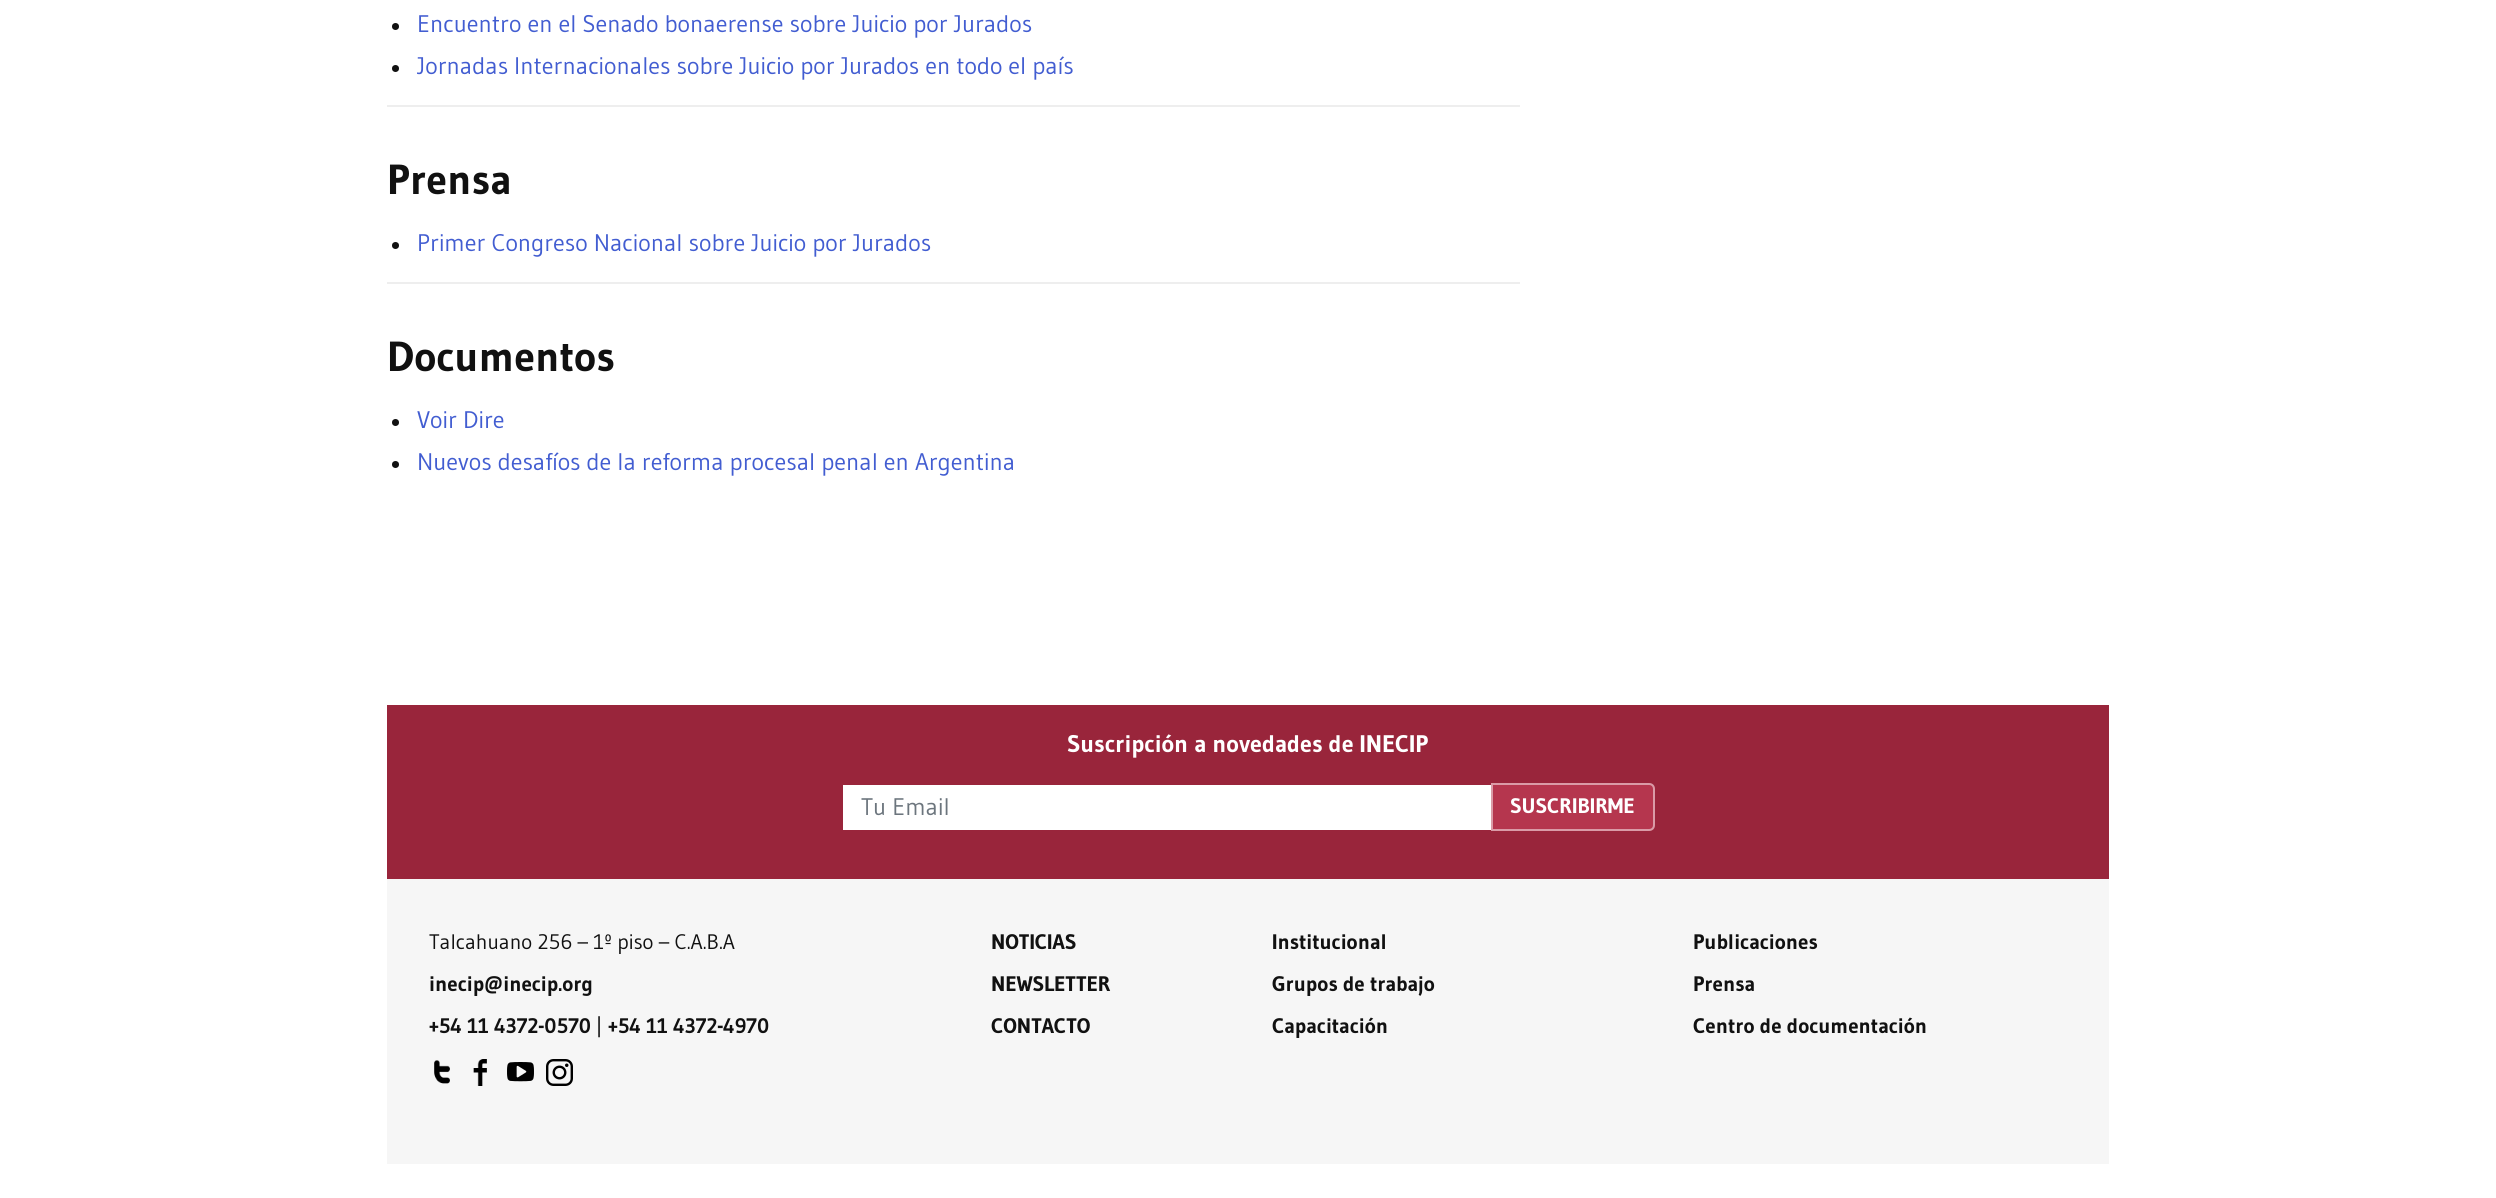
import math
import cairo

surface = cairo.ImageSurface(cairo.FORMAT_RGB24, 2496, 1198)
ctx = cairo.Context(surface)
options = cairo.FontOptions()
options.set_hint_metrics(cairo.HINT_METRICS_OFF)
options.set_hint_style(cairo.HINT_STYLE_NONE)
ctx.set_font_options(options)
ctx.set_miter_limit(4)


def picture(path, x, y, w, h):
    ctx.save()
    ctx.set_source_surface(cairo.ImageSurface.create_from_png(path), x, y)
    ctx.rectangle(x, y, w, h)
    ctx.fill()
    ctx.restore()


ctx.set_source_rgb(1, 1, 1)
ctx.paint()
ctx.set_source_rgb(0.933, 0.933, 0.933)
ctx.rectangle(387, 105, 1133, 2)
ctx.fill()
ctx.set_source_rgb(0.067, 0.067, 0.067)
ctx.arc(395.5, 26.5, 3.5, 0, 2 * math.pi)
ctx.fill()
ctx.select_font_face("Gudea")
ctx.set_font_size(24)
ctx.set_source_rgb(0.259, 0.365, 0.82)
ctx.move_to(417, 32)
ctx.show_text("Encuentro en el Senado bonaerense sobre Juicio por Jurados")
ctx.set_source_rgb(0.067, 0.067, 0.067)
ctx.new_path()
ctx.arc(395.5, 68.5, 3.5, 0, 2 * math.pi)
ctx.fill()
ctx.set_source_rgb(0.259, 0.365, 0.82)
ctx.move_to(417, 74)
ctx.show_text("Jornadas Internacionales sobre Juicio por Jurados en todo el país")
ctx.select_font_face("Gudea", cairo.FONT_SLANT_NORMAL, cairo.FONT_WEIGHT_BOLD)
ctx.set_font_size(42)
ctx.set_source_rgb(0.067, 0.067, 0.067)
ctx.move_to(387, 194)
ctx.show_text("Prensa")
ctx.set_source_rgb(0.933, 0.933, 0.933)
ctx.rectangle(387, 282, 1133, 2)
ctx.fill()
ctx.set_source_rgb(0.067, 0.067, 0.067)
ctx.arc(395.5, 245.5, 3.5, 0, 2 * math.pi)
ctx.fill()
ctx.select_font_face("Gudea")
ctx.set_font_size(24)
ctx.set_source_rgb(0.259, 0.365, 0.82)
ctx.move_to(417, 251)
ctx.show_text("Primer Congreso Nacional sobre Juicio por Jurados")
ctx.select_font_face("Gudea", cairo.FONT_SLANT_NORMAL, cairo.FONT_WEIGHT_BOLD)
ctx.set_font_size(42)
ctx.set_source_rgb(0.067, 0.067, 0.067)
ctx.move_to(387, 371)
ctx.show_text("Documentos")
ctx.new_path()
ctx.arc(395.5, 422.5, 3.5, 0, 2 * math.pi)
ctx.fill()
ctx.select_font_face("Gudea")
ctx.set_font_size(24)
ctx.set_source_rgb(0.259, 0.365, 0.82)
ctx.move_to(417, 428)
ctx.show_text("Voir Dire")
ctx.set_source_rgb(0.067, 0.067, 0.067)
ctx.new_path()
ctx.arc(395.5, 464.5, 3.5, 0, 2 * math.pi)
ctx.fill()
ctx.set_source_rgb(0.259, 0.365, 0.82)
ctx.move_to(417, 470)
ctx.show_text("Nuevos desafíos de la reforma procesal penal en Argentina")
ctx.set_source_rgb(0.6, 0.145, 0.231)
ctx.rectangle(387, 705, 1722, 174)
ctx.fill()
ctx.select_font_face("Gudea", cairo.FONT_SLANT_NORMAL, cairo.FONT_WEIGHT_BOLD)
ctx.set_source_rgb(1, 1, 1)
ctx.move_to(1067, 752)
ctx.show_text("Suscripción a novedades de INECIP")
ctx.rectangle(843, 785, 648, 45)
ctx.fill()
ctx.select_font_face("Gudea")
ctx.set_source_rgb(0.424, 0.459, 0.49)
ctx.move_to(861, 815)
ctx.show_text("Tu Email")
ctx.set_source_rgb(0.71, 0.212, 0.306)
ctx.new_path()
ctx.move_to(1491, 783)
ctx.line_to(1649, 783)
ctx.curve_to(1652.5, 783, 1655, 785.5, 1655, 789)
ctx.line_to(1655, 825)
ctx.curve_to(1655, 828.5, 1652.5, 831, 1649, 831)
ctx.line_to(1491, 831)
ctx.close_path()
ctx.fill()
ctx.new_path()
ctx.move_to(1492, 784)
ctx.line_to(1649, 784)
ctx.curve_to(1652, 784, 1654, 786, 1654, 789)
ctx.line_to(1654, 825)
ctx.curve_to(1654, 828, 1652, 830, 1649, 830)
ctx.line_to(1492, 830)
ctx.close_path()
ctx.set_source_rgba(1, 1, 1, 0.5)
ctx.stroke()
ctx.select_font_face("Gudea", cairo.FONT_SLANT_NORMAL, cairo.FONT_WEIGHT_BOLD)
ctx.set_font_size(21)
ctx.set_source_rgb(1, 1, 1)
ctx.move_to(1510, 813)
ctx.show_text("SUSCRIBIRME")
ctx.set_source_rgb(0.961, 0.961, 0.961)
ctx.rectangle(387, 879, 1722, 285)
ctx.fill()
ctx.select_font_face("Gudea")
ctx.set_source_rgb(0.067, 0.067, 0.067)
ctx.move_to(429, 949)
ctx.show_text("Talcahuano 256 – 1º piso – C.A.B.A")
ctx.select_font_face("Gudea", cairo.FONT_SLANT_NORMAL, cairo.FONT_WEIGHT_BOLD)
ctx.move_to(429, 991)
ctx.show_text("inecip@inecip.org")
ctx.move_to(429, 1033)
ctx.show_text("+54 11 4372-0570")
ctx.select_font_face("Gudea")
ctx.move_to(596, 1033)
ctx.show_text("|")
ctx.select_font_face("Gudea", cairo.FONT_SLANT_NORMAL, cairo.FONT_WEIGHT_BOLD)
ctx.move_to(608, 1033)
ctx.show_text("+54 11 4372-4970")
picture("img1.png", 434, 1060, 16, 24)
picture("img2.png", 473, 1059, 14, 27)
picture("img3.png", 507, 1062, 27, 20)
picture("img4.png", 546, 1059, 27, 27)
ctx.move_to(991, 949)
ctx.show_text("NOTICIAS")
ctx.move_to(991, 991)
ctx.show_text("NEWSLETTER")
ctx.move_to(991, 1033)
ctx.show_text("CONTACTO")
ctx.move_to(1272, 949)
ctx.show_text("Institucional")
ctx.move_to(1272, 991)
ctx.show_text("Grupos de trabajo")
ctx.move_to(1272, 1033)
ctx.show_text("Capacitación")
ctx.move_to(1693, 949)
ctx.show_text("Publicaciones")
ctx.move_to(1693, 991)
ctx.show_text("Prensa")
ctx.move_to(1693, 1033)
ctx.show_text("Centro de documentación")
surface.write_to_png("page.png")
